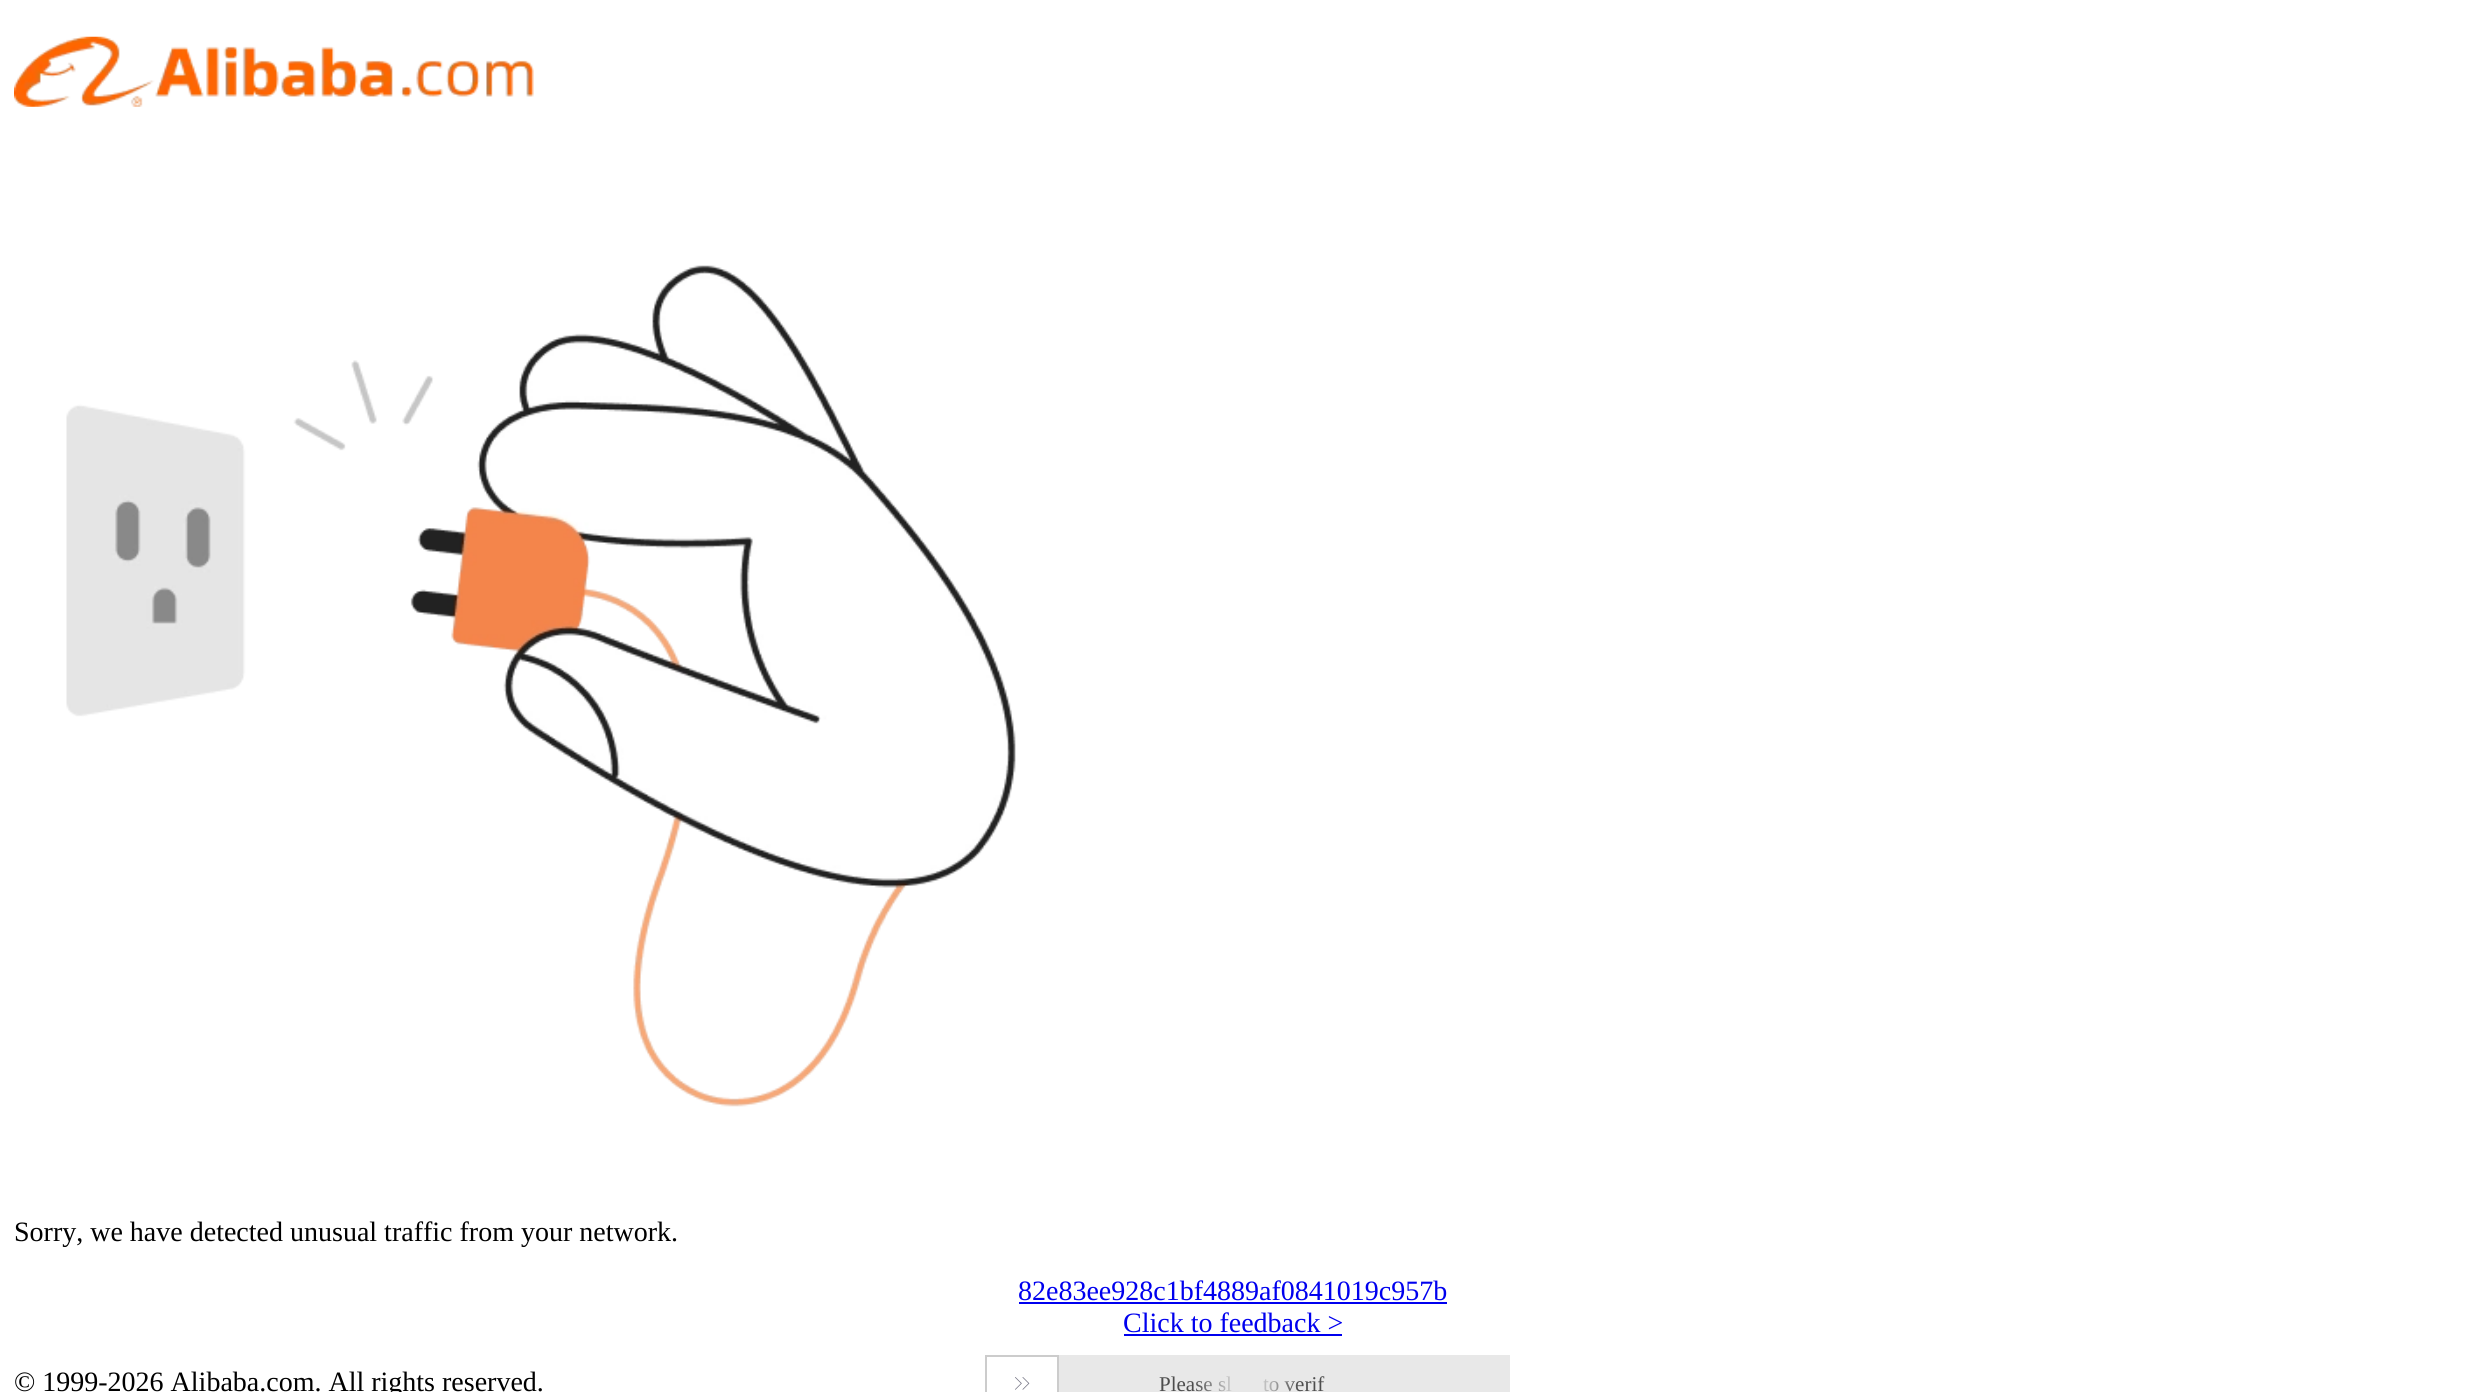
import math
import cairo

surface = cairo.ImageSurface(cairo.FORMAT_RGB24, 2465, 1392)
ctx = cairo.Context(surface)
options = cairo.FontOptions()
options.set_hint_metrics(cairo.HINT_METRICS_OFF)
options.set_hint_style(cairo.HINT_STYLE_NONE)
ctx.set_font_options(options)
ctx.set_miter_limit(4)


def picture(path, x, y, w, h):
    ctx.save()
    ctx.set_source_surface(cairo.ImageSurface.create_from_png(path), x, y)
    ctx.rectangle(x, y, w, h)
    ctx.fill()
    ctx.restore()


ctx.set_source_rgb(1, 1, 1)
ctx.paint()
picture("img1.png", 14, 36, 520, 71)
picture("img2.png", 66, 265, 950, 842)
ctx.select_font_face("Liberation Serif")
ctx.set_font_size(28)
ctx.set_source_rgb(0, 0, 0)
ctx.move_to(14, 1241)
ctx.show_text("Sorry, we have detected unusual traffic from your network.")
ctx.set_source_rgb(0, 0, 0.933)
ctx.move_to(1018, 1300)
ctx.show_text("82e83ee928c1bf4889af0841019c957b")
ctx.rectangle(1019, 1302, 428, 2)
ctx.fill()
ctx.move_to(1123, 1332)
ctx.show_text("Click to feedback >")
ctx.rectangle(1124, 1334, 218, 2)
ctx.fill()
ctx.set_source_rgb(0.91, 0.91, 0.91)
ctx.rectangle(1059, 1355, 451, 37)
ctx.fill()
ctx.rectangle(986, 1356, 72, 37)
ctx.set_source_rgb(0.8, 0.8, 0.8)
ctx.stroke()
picture("img3.png", 1015, 1377, 15, 13)
ctx.set_font_size(21)
gradient = cairo.LinearGradient(984, 1356, 1509, 1356)
gradient.add_color_stop_rgba(0, 0.302, 0.302, 0.302, 1)
gradient.add_color_stop_rgba(0.4, 0.302, 0.302, 0.302, 1)
gradient.add_color_stop_rgba(0.5, 1, 1, 1, 1)
gradient.add_color_stop_rgba(0.6, 0.302, 0.302, 0.302, 1)
gradient.add_color_stop_rgba(1, 0.302, 0.302, 0.302, 1)
ctx.set_source(gradient)
ctx.move_to(1159, 1391)
ctx.show_text("Please sl")
ctx.move_to(1263, 1391)
ctx.show_text("to verif")
ctx.set_font_size(28)
ctx.set_source_rgb(0, 0, 0)
ctx.move_to(14, 1391)
ctx.show_text("© 1999-2026 Alibaba.com. All rights reserved.")
surface.write_to_png("page.png")
